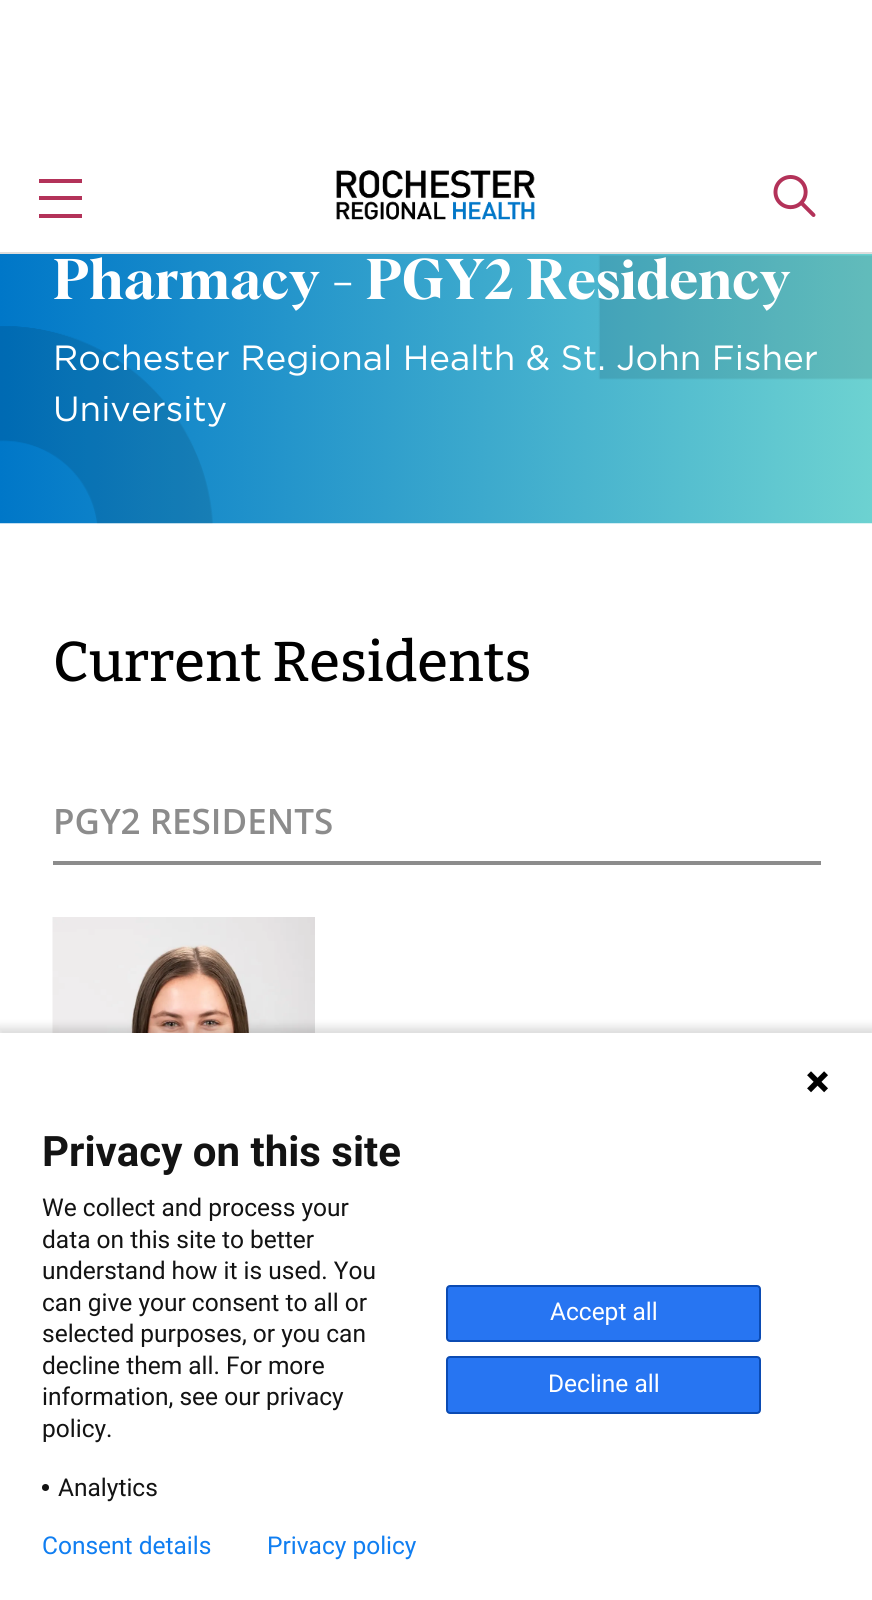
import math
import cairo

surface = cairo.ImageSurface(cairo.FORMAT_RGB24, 872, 1600)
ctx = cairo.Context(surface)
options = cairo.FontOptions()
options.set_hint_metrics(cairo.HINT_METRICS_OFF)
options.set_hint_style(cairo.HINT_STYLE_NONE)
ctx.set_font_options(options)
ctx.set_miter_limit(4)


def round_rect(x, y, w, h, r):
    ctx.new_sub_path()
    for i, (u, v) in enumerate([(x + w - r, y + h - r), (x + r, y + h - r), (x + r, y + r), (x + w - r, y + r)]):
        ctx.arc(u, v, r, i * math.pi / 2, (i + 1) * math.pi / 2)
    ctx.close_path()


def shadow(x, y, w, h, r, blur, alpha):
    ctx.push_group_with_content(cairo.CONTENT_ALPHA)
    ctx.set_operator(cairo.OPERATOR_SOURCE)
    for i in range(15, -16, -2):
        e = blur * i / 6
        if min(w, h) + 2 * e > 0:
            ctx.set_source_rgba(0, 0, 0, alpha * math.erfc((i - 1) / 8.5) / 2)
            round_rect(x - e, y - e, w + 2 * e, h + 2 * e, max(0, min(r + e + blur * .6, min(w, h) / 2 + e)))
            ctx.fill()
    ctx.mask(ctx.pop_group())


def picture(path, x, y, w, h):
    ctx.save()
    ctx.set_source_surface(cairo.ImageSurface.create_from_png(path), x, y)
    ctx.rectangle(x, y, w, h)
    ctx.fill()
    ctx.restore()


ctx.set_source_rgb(1, 1, 1)
ctx.paint()
ctx.set_source_rgb(0.867, 0.867, 0.867)
ctx.rectangle(0, 252, 872, 2)
ctx.fill()
ctx.set_source_rgb(0.702, 0.196, 0.349)
ctx.rectangle(39, 179, 43, 4)
ctx.fill()
ctx.rectangle(39, 196, 43, 4)
ctx.fill()
ctx.rectangle(39, 214, 43, 4)
ctx.fill()
picture("img1.png", 336, 170, 200, 50)
picture("img2.png", 773, 175, 43, 42)
picture("img3.png", 0, 254, 872, 270)
ctx.select_font_face("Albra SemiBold")
ctx.set_font_size(56)
ctx.set_source_rgb(1, 1, 1)
ctx.move_to(53, 299)
ctx.show_text("Pharmacy - PGY2 Residency")
ctx.select_font_face("Gotham")
ctx.set_font_size(35)
ctx.move_to(53, 370)
ctx.show_text("Rochester Regional Health & St. John Fisher")
ctx.move_to(53, 421)
ctx.show_text("University")
ctx.select_font_face("Bitter Medium")
ctx.set_font_size(56)
ctx.set_source_rgb(0, 0, 0)
ctx.move_to(53, 681)
ctx.show_text("Current Residents")
ctx.set_source_rgb(0.549, 0.549, 0.549)
ctx.rectangle(53, 861, 768, 4)
ctx.fill()
ctx.select_font_face("Open Sans SemiBold")
ctx.set_font_size(35)
ctx.move_to(53, 834)
ctx.show_text("PGY2 RESIDENTS")
picture("img4.png", 52, 917, 263, 116)
ctx.set_source_rgb(0, 0, 0)
shadow(-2, 1027, 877, 573, 0, 4.5, 0.14)
ctx.set_source_rgb(1, 1, 1)
ctx.rectangle(0, 1033, 872, 567)
ctx.fill()
picture("img5.png", 807, 1071, 21, 22)
ctx.select_font_face("Roboto", cairo.FONT_SLANT_NORMAL, cairo.FONT_WEIGHT_BOLD)
ctx.set_font_size(42)
ctx.set_source_rgb(0.075, 0.075, 0.075)
ctx.move_to(42, 1166)
ctx.show_text("Privacy on this site")
ctx.select_font_face("Roboto")
ctx.set_font_size(24.5)
ctx.move_to(42, 1216)
ctx.show_text("We collect and process your")
ctx.move_to(42, 1248)
ctx.show_text("data on this site to better")
ctx.move_to(42, 1279)
ctx.show_text("understand how it is used. You")
ctx.move_to(42, 1311)
ctx.show_text("can give your consent to all or")
ctx.move_to(42, 1342)
ctx.show_text("selected purposes, or you can")
ctx.move_to(42, 1374)
ctx.show_text("decline them all. For more")
ctx.move_to(42, 1405)
ctx.show_text("information, see our privacy")
ctx.move_to(42, 1437)
ctx.show_text("policy.")
ctx.new_path()
ctx.arc(45.5, 1487.5, 3.5, 0, 2 * math.pi)
ctx.fill()
ctx.move_to(58, 1496)
ctx.show_text("Analytics")
ctx.set_source_rgb(0.153, 0.459, 0.949)
round_rect(447, 1286, 313, 55, 3)
ctx.fill_preserve()
ctx.set_source_rgb(0.043, 0.294, 0.702)
ctx.stroke()
ctx.set_source_rgb(1, 1, 1)
ctx.move_to(550, 1320)
ctx.show_text("Accept all")
ctx.set_source_rgb(0.153, 0.459, 0.949)
round_rect(447, 1357, 313, 56, 3)
ctx.fill_preserve()
ctx.set_source_rgb(0.043, 0.294, 0.702)
ctx.stroke()
ctx.set_source_rgb(1, 1, 1)
ctx.move_to(548, 1392)
ctx.show_text("Decline all")
ctx.set_source_rgb(0.063, 0.494, 0.945)
ctx.move_to(42, 1554)
ctx.show_text("Consent details")
ctx.move_to(267, 1554)
ctx.show_text("Privacy policy")
surface.write_to_png("page.png")
